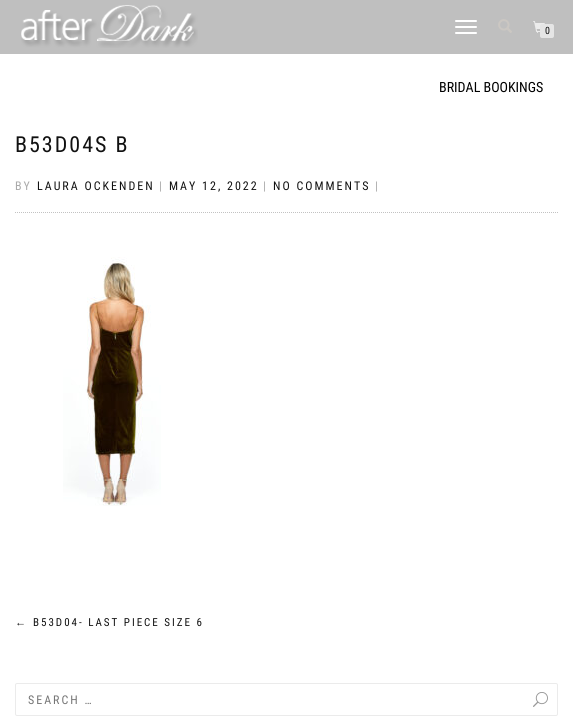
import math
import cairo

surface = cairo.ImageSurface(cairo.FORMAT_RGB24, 573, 727)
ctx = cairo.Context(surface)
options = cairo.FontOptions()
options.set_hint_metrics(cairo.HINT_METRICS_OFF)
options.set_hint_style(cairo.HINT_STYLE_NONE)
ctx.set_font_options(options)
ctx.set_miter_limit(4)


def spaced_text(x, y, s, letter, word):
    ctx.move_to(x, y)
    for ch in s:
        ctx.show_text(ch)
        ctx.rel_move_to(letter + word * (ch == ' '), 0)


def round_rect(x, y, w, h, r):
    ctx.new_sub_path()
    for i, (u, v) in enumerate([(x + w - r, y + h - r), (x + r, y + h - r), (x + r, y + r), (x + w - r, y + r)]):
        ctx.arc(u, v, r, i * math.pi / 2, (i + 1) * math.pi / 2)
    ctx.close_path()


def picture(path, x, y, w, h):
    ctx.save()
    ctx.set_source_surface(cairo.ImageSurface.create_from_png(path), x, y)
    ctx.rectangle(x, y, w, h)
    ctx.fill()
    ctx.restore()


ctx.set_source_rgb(1, 1, 1)
ctx.paint()
ctx.set_source_rgb(0.749, 0.749, 0.749)
ctx.rectangle(0, 0, 573, 54)
ctx.fill()
picture("img1.png", 21, 5, 177, 43)
ctx.set_source_rgb(1, 1, 1)
round_rect(455, 20, 22, 2, 1)
ctx.fill()
round_rect(455, 26, 22, 2, 1)
ctx.fill()
round_rect(455, 32, 22, 2, 1)
ctx.fill()
picture("img2.png", 498, 19, 14, 14)
picture("img3.png", 533, 21, 12, 12)
ctx.set_source_rgb(0.898, 0.898, 0.898)
round_rect(540, 24, 14, 14, 2)
ctx.fill()
ctx.select_font_face("Roboto Condensed")
ctx.set_font_size(10)
ctx.set_source_rgb(0.067, 0.067, 0.067)
ctx.move_to(545, 34)
ctx.show_text("0")
ctx.set_font_size(14)
ctx.set_source_rgb(0, 0, 0)
ctx.move_to(439, 92)
ctx.show_text("BRIDAL BOOKINGS")
ctx.set_font_size(22)
ctx.set_source_rgb(0.067, 0.067, 0.067)
spaced_text(15, 152, "B53D04S B", 2, 0)
ctx.set_font_size(12)
ctx.set_source_rgb(0.667, 0.667, 0.667)
spaced_text(15, 190, "BY", 2, 0)
ctx.set_source_rgb(0.067, 0.067, 0.067)
spaced_text(37, 190, "LAURA OCKENDEN", 2, 0)
ctx.set_source_rgb(0.667, 0.667, 0.667)
spaced_text(159, 190, "|", 2, 0)
ctx.set_source_rgb(0.067, 0.067, 0.067)
spaced_text(169, 190, "MAY 12, 2022", 2, 0)
ctx.set_source_rgb(0.667, 0.667, 0.667)
spaced_text(263, 190, "|", 2, 0)
ctx.set_source_rgb(0.067, 0.067, 0.067)
spaced_text(273, 190, "NO COMMENTS", 2, 0)
ctx.set_source_rgb(0.667, 0.667, 0.667)
spaced_text(375, 190, "|", 2, 0)
ctx.new_path()
ctx.move_to(15, 212.5)
ctx.line_to(558, 212.5)
ctx.set_source_rgb(0.761, 0.761, 0.761)
ctx.set_line_width(1)
ctx.set_dash([1, 1])
ctx.stroke()
picture("img4.png", 63, 257, 98, 249)
ctx.select_font_face("Liberation Sans")
ctx.set_font_size(11)
ctx.set_source_rgb(0.067, 0.067, 0.067)
spaced_text(15, 626, "←", 2, 0)
ctx.select_font_face("Roboto Condensed")
spaced_text(33, 626, "B53D04- LAST PIECE SIZE 6", 2, 0)
round_rect(15.5, 683.5, 542, 32, 1.5)
ctx.set_source_rgb(0.918, 0.918, 0.918)
ctx.set_dash([])
ctx.stroke()
ctx.set_font_size(12)
ctx.set_source_rgb(0.459, 0.459, 0.459)
spaced_text(28, 704, "SEARCH …", 2, 0)
picture("img5.png", 533, 692, 15, 15)
surface.write_to_png("page.png")
